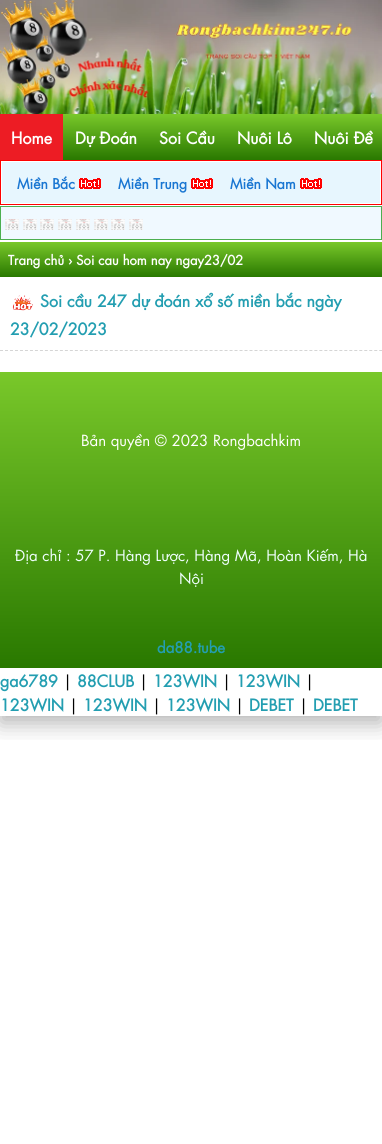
import math
import cairo

surface = cairo.ImageSurface(cairo.FORMAT_RGB24, 382, 1144)
ctx = cairo.Context(surface)
options = cairo.FontOptions()
options.set_hint_metrics(cairo.HINT_METRICS_OFF)
options.set_hint_style(cairo.HINT_STYLE_NONE)
ctx.set_font_options(options)
ctx.set_miter_limit(4)


def round_rect(x, y, w, h, r):
    ctx.new_sub_path()
    for i, (u, v) in enumerate([(x + w - r, y + h - r), (x + r, y + h - r), (x + r, y + r), (x + w - r, y + r)]):
        ctx.arc(u, v, r, i * math.pi / 2, (i + 1) * math.pi / 2)
    ctx.close_path()


def shadow(x, y, w, h, r, blur, alpha):
    ctx.push_group_with_content(cairo.CONTENT_ALPHA)
    ctx.set_operator(cairo.OPERATOR_SOURCE)
    for i in range(15, -16, -2):
        e = blur * i / 6
        if min(w, h) + 2 * e > 0:
            ctx.set_source_rgba(0, 0, 0, alpha * math.erfc((i - 1) / 8.5) / 2)
            round_rect(x - e, y - e, w + 2 * e, h + 2 * e, max(0, min(r + e + blur * .6, min(w, h) / 2 + e)))
            ctx.fill()
    ctx.mask(ctx.pop_group())


def picture(path, x, y, w, h):
    ctx.save()
    ctx.set_source_surface(cairo.ImageSurface.create_from_png(path), x, y)
    ctx.rectangle(x, y, w, h)
    ctx.fill()
    ctx.restore()


ctx.set_source_rgb(1, 1, 1)
ctx.paint()
ctx.save()
ctx.rectangle(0, 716, 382, 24)
ctx.clip()
ctx.set_source_rgb(0, 0, 0)
shadow(0, 7, 382, 716, 0, 11, 0.3)
ctx.restore()
picture("img1.png", 0, 0, 382, 114)
gradient = cairo.LinearGradient(191, 114, 191, 160)
gradient.add_color_stop_rgba(0, 0.475, 0.784, 0.165, 1)
gradient.add_color_stop_rgba(1, 0.161, 0.471, 0, 1)
ctx.set_source(gradient)
ctx.rectangle(63, 114, 319, 46)
ctx.fill()
ctx.set_source_rgb(0.929, 0.11, 0.141)
ctx.rectangle(0, 114, 63, 46)
ctx.fill()
ctx.select_font_face("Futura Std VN", cairo.FONT_SLANT_NORMAL, cairo.FONT_WEIGHT_BOLD)
ctx.set_font_size(16)
ctx.set_source_rgb(1, 1, 1)
ctx.move_to(11, 144)
ctx.show_text("Home")
ctx.move_to(75, 144)
ctx.show_text("Dự Đoán")
ctx.move_to(159, 144)
ctx.show_text("Soi Cầu")
ctx.move_to(237, 144)
ctx.show_text("Nuôi Lô")
ctx.move_to(314, 144)
ctx.show_text("Nuôi Đề")
ctx.rectangle(0.5, 160.5, 381, 44)
ctx.set_source_rgb(1, 0, 0)
ctx.set_line_width(1)
ctx.stroke()
ctx.set_source_rgb(0.906, 0.961, 0.996)
ctx.rectangle(2, 162, 378, 41)
ctx.fill()
ctx.set_font_size(14)
ctx.set_source_rgb(0.098, 0.463, 0.824)
ctx.move_to(17, 189)
ctx.show_text("Miền Bắc")
picture("img2.png", 79, 178, 22, 11)
ctx.move_to(118, 189)
ctx.show_text("Miền Trung")
picture("img2.png", 191, 178, 22, 11)
ctx.move_to(230, 189)
ctx.show_text("Miền Nam")
picture("img2.png", 300, 178, 22, 11)
ctx.set_source_rgb(0.941, 0.973, 1)
ctx.rectangle(0.5, 206.5, 381, 33)
ctx.fill_preserve()
ctx.set_source_rgb(0.298, 0.686, 0.314)
ctx.stroke()
picture("img3.png", 5, 219, 14, 11)
picture("img3.png", 23, 219, 14, 11)
picture("img3.png", 40, 219, 14, 11)
picture("img3.png", 58, 219, 14, 11)
picture("img3.png", 76, 219, 14, 11)
picture("img3.png", 94, 219, 14, 11)
picture("img3.png", 111, 219, 14, 11)
picture("img3.png", 129, 219, 14, 11)
gradient = cairo.LinearGradient(191, 242, 191, 277)
gradient.add_color_stop_rgba(0, 0.475, 0.784, 0.165, 1)
gradient.add_color_stop_rgba(1, 0.161, 0.471, 0, 1)
ctx.set_source(gradient)
ctx.rectangle(0, 242, 382, 35)
ctx.fill()
ctx.set_font_size(13)
ctx.set_source_rgb(1, 1, 1)
ctx.move_to(8, 265)
ctx.show_text("Trang chủ › Soi cau hom nay ngay23/02")
ctx.new_path()
ctx.move_to(0, 350.5)
ctx.line_to(382, 350.5)
ctx.set_source_rgb(0.835, 0.835, 0.835)
ctx.set_dash([3, 1.99])
ctx.stroke()
picture("img4.png", 12, 295, 21, 16)
ctx.set_font_size(16)
ctx.set_source_rgb(0.137, 0.62, 0.694)
ctx.move_to(40, 307)
ctx.show_text("Soi cầu 247 dự đoán xổ số miền bắc ngày")
ctx.move_to(10, 335)
ctx.show_text("23/02/2023")
gradient = cairo.LinearGradient(191, 372, 191, 668)
gradient.add_color_stop_rgba(0, 0.475, 0.784, 0.165, 1)
gradient.add_color_stop_rgba(1, 0.161, 0.471, 0, 1)
ctx.set_source(gradient)
ctx.rectangle(0, 372, 382, 296)
ctx.fill()
ctx.select_font_face("Futura Std VN")
ctx.set_font_size(15)
ctx.set_source_rgb(1, 1, 1)
ctx.move_to(81, 446)
ctx.show_text("Bản quyền © 2023 Rongbachkim")
ctx.set_source_rgb(0.941, 1, 1)
ctx.move_to(15, 561)
ctx.show_text("Địa chỉ : 57 P. Hàng Lược, Hàng Mã, Hoàn Kiếm, Hà")
ctx.move_to(179, 584)
ctx.show_text("Nội")
ctx.select_font_face("Futura Std VN", cairo.FONT_SLANT_NORMAL, cairo.FONT_WEIGHT_BOLD)
ctx.set_source_rgb(0.137, 0.62, 0.694)
ctx.move_to(157, 653)
ctx.show_text("da88.tube")
ctx.set_font_size(16)
ctx.move_to(0, 687)
ctx.show_text("ga6789")
ctx.select_font_face("Futura Std VN")
ctx.set_source_rgb(0, 0, 0)
ctx.move_to(63, 687)
ctx.show_text("|")
ctx.select_font_face("Futura Std VN", cairo.FONT_SLANT_NORMAL, cairo.FONT_WEIGHT_BOLD)
ctx.set_source_rgb(0.137, 0.62, 0.694)
ctx.move_to(77, 687)
ctx.show_text("88CLUB")
ctx.select_font_face("Futura Std VN")
ctx.set_source_rgb(0, 0, 0)
ctx.move_to(139, 687)
ctx.show_text("|")
ctx.select_font_face("Futura Std VN", cairo.FONT_SLANT_NORMAL, cairo.FONT_WEIGHT_BOLD)
ctx.set_source_rgb(0.137, 0.62, 0.694)
ctx.move_to(153, 687)
ctx.show_text("123WIN")
ctx.select_font_face("Futura Std VN")
ctx.set_source_rgb(0, 0, 0)
ctx.move_to(222, 687)
ctx.show_text("|")
ctx.select_font_face("Futura Std VN", cairo.FONT_SLANT_NORMAL, cairo.FONT_WEIGHT_BOLD)
ctx.set_source_rgb(0.137, 0.62, 0.694)
ctx.move_to(236, 687)
ctx.show_text("123WIN")
ctx.select_font_face("Futura Std VN")
ctx.set_source_rgb(0, 0, 0)
ctx.move_to(305, 687)
ctx.show_text("|")
ctx.select_font_face("Futura Std VN", cairo.FONT_SLANT_NORMAL, cairo.FONT_WEIGHT_BOLD)
ctx.set_source_rgb(0.137, 0.62, 0.694)
ctx.move_to(0, 711)
ctx.show_text("123WIN")
ctx.select_font_face("Futura Std VN")
ctx.set_source_rgb(0, 0, 0)
ctx.move_to(69, 711)
ctx.show_text("|")
ctx.select_font_face("Futura Std VN", cairo.FONT_SLANT_NORMAL, cairo.FONT_WEIGHT_BOLD)
ctx.set_source_rgb(0.137, 0.62, 0.694)
ctx.move_to(83, 711)
ctx.show_text("123WIN")
ctx.select_font_face("Futura Std VN")
ctx.set_source_rgb(0, 0, 0)
ctx.move_to(152, 711)
ctx.show_text("|")
ctx.select_font_face("Futura Std VN", cairo.FONT_SLANT_NORMAL, cairo.FONT_WEIGHT_BOLD)
ctx.set_source_rgb(0.137, 0.62, 0.694)
ctx.move_to(166, 711)
ctx.show_text("123WIN")
ctx.select_font_face("Futura Std VN")
ctx.set_source_rgb(0, 0, 0)
ctx.move_to(235, 711)
ctx.show_text("|")
ctx.select_font_face("Futura Std VN", cairo.FONT_SLANT_NORMAL, cairo.FONT_WEIGHT_BOLD)
ctx.set_source_rgb(0.137, 0.62, 0.694)
ctx.move_to(249, 711)
ctx.show_text("DEBET")
ctx.select_font_face("Futura Std VN")
ctx.set_source_rgb(0, 0, 0)
ctx.move_to(299, 711)
ctx.show_text("|")
ctx.select_font_face("Futura Std VN", cairo.FONT_SLANT_NORMAL, cairo.FONT_WEIGHT_BOLD)
ctx.set_source_rgb(0.137, 0.62, 0.694)
ctx.move_to(313, 711)
ctx.show_text("DEBET")
surface.write_to_png("page.png")
